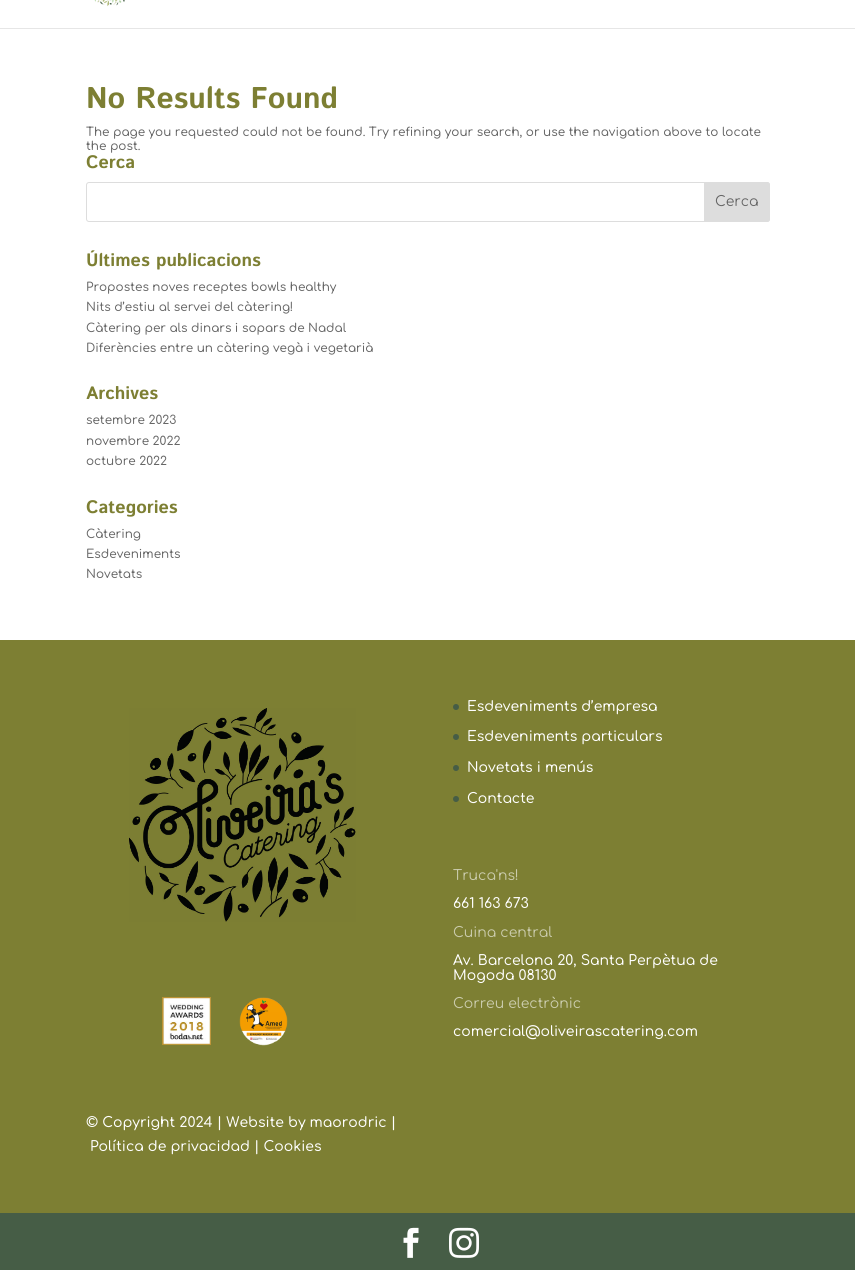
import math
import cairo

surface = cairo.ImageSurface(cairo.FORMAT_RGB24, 855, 1270)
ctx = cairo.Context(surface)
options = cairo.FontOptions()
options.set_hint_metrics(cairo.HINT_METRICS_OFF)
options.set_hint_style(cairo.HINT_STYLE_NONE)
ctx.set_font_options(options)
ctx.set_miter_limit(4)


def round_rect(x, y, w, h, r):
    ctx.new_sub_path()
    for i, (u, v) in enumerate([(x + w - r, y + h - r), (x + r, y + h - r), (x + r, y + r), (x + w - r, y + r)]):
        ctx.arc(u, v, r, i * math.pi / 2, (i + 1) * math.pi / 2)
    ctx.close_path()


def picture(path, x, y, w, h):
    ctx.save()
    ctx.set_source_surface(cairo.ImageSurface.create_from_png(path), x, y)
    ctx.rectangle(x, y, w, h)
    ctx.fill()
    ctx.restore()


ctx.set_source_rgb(0.49, 0.498, 0.2)
ctx.paint()
ctx.set_source_rgb(0.902, 0.902, 0.902)
ctx.rectangle(0, 28, 855, 1)
ctx.fill()
ctx.set_source_rgb(1, 1, 1)
ctx.rectangle(0, 0, 855, 28)
ctx.fill()
picture("img1.png", 94, 0, 31, 7)
ctx.rectangle(0, 29, 855, 611)
ctx.fill()
ctx.select_font_face("Istok Web", cairo.FONT_SLANT_NORMAL, cairo.FONT_WEIGHT_BOLD)
ctx.set_font_size(30)
ctx.set_source_rgb(0.49, 0.498, 0.2)
ctx.move_to(86, 108)
ctx.show_text("No Results Found")
ctx.select_font_face("Comfortaa Medium")
ctx.set_font_size(12)
ctx.set_source_rgb(0.4, 0.4, 0.4)
ctx.move_to(86, 136)
ctx.show_text("The page you requested could not be found. Try refining your search, or use the navigation above to locate")
ctx.move_to(86, 150)
ctx.show_text("the post.")
ctx.select_font_face("Istok Web", cairo.FONT_SLANT_NORMAL, cairo.FONT_WEIGHT_BOLD)
ctx.set_font_size(18)
ctx.set_source_rgb(0.49, 0.498, 0.2)
ctx.move_to(86, 168)
ctx.show_text("Cerca")
round_rect(86.5, 182.5, 683, 39, 2.5)
ctx.set_source_rgb(0.867, 0.867, 0.867)
ctx.set_line_width(1)
ctx.stroke()
ctx.new_path()
ctx.move_to(704.5, 182.5)
ctx.line_to(767, 182.5)
ctx.curve_to(768.5, 182.5, 769.5, 183.5, 769.5, 185)
ctx.line_to(769.5, 219)
ctx.curve_to(769.5, 220.5, 768.5, 221.5, 767, 221.5)
ctx.line_to(704.5, 221.5)
ctx.close_path()
ctx.fill_preserve()
ctx.stroke()
ctx.select_font_face("Comfortaa")
ctx.set_font_size(14)
ctx.set_source_rgb(0.4, 0.4, 0.4)
ctx.move_to(715, 206)
ctx.show_text("Cerca")
ctx.select_font_face("Istok Web", cairo.FONT_SLANT_NORMAL, cairo.FONT_WEIGHT_BOLD)
ctx.set_font_size(18)
ctx.set_source_rgb(0.49, 0.498, 0.2)
ctx.move_to(86, 266)
ctx.show_text("Últimes publicacions")
ctx.select_font_face("Comfortaa Medium")
ctx.set_font_size(12)
ctx.set_source_rgb(0.4, 0.4, 0.4)
ctx.move_to(86, 291)
ctx.show_text("Propostes noves receptes bowls healthy")
ctx.move_to(86, 311)
ctx.show_text("Nits d’estiu al servei del càtering!")
ctx.move_to(86, 332)
ctx.show_text("Càtering per als dinars i sopars de Nadal")
ctx.move_to(86, 352)
ctx.show_text("Diferències entre un càtering vegà i vegetarià")
ctx.select_font_face("Istok Web", cairo.FONT_SLANT_NORMAL, cairo.FONT_WEIGHT_BOLD)
ctx.set_font_size(18)
ctx.set_source_rgb(0.49, 0.498, 0.2)
ctx.move_to(86, 399)
ctx.show_text("Archives")
ctx.select_font_face("Comfortaa Medium")
ctx.set_font_size(12)
ctx.set_source_rgb(0.4, 0.4, 0.4)
ctx.move_to(86, 424)
ctx.show_text("setembre 2023")
ctx.move_to(86, 445)
ctx.show_text("novembre 2022")
ctx.move_to(86, 465)
ctx.show_text("octubre 2022")
ctx.select_font_face("Istok Web", cairo.FONT_SLANT_NORMAL, cairo.FONT_WEIGHT_BOLD)
ctx.set_font_size(18)
ctx.set_source_rgb(0.49, 0.498, 0.2)
ctx.move_to(86, 513)
ctx.show_text("Categories")
ctx.select_font_face("Comfortaa Medium")
ctx.set_font_size(12)
ctx.set_source_rgb(0.4, 0.4, 0.4)
ctx.move_to(86, 538)
ctx.show_text("Càtering")
ctx.move_to(86, 558)
ctx.show_text("Esdeveniments")
ctx.move_to(86, 578)
ctx.show_text("Novetats")
picture("img2.png", 129, 708, 227, 214)
picture("img3.png", 162, 997, 49, 48)
picture("img4.png", 239, 997, 49, 49)
ctx.set_source_rgb(0.275, 0.365, 0.275)
ctx.arc(456, 707, 3, 0, 2 * math.pi)
ctx.fill()
ctx.set_font_size(14)
ctx.set_source_rgb(1, 1, 1)
ctx.move_to(467, 711)
ctx.show_text("Esdeveniments d’empresa")
ctx.set_source_rgb(0.275, 0.365, 0.275)
ctx.new_path()
ctx.arc(456, 737, 3, 0, 2 * math.pi)
ctx.fill()
ctx.set_source_rgb(1, 1, 1)
ctx.move_to(467, 741)
ctx.show_text("Esdeveniments particulars")
ctx.set_source_rgb(0.275, 0.365, 0.275)
ctx.new_path()
ctx.arc(456, 768, 3, 0, 2 * math.pi)
ctx.fill()
ctx.set_source_rgb(1, 1, 1)
ctx.move_to(467, 772)
ctx.show_text("Novetats i menús")
ctx.set_source_rgb(0.275, 0.365, 0.275)
ctx.new_path()
ctx.arc(456, 799, 3, 0, 2 * math.pi)
ctx.fill()
ctx.set_source_rgb(1, 1, 1)
ctx.move_to(467, 803)
ctx.show_text("Contacte")
ctx.select_font_face("Comfortaa")
ctx.set_source_rgb(0.796, 0.8, 0.678)
ctx.move_to(453, 880)
ctx.show_text("Truca'ns!")
ctx.select_font_face("Comfortaa Medium")
ctx.set_source_rgb(1, 1, 1)
ctx.move_to(453, 908)
ctx.show_text("661 163 673")
ctx.select_font_face("Comfortaa")
ctx.set_source_rgb(0.796, 0.8, 0.678)
ctx.move_to(453, 937)
ctx.show_text("Cuina central")
ctx.select_font_face("Comfortaa Medium")
ctx.set_source_rgb(1, 1, 1)
ctx.move_to(453, 965)
ctx.show_text("Av. Barcelona 20, Santa Perpètua de")
ctx.move_to(453, 980)
ctx.show_text("Mogoda 08130")
ctx.select_font_face("Comfortaa")
ctx.set_source_rgb(0.796, 0.8, 0.678)
ctx.move_to(453, 1008)
ctx.show_text("Correu electrònic")
ctx.select_font_face("Comfortaa Medium")
ctx.set_source_rgb(1, 1, 1)
ctx.move_to(453, 1036)
ctx.show_text("comercial@oliveirascatering.com")
ctx.move_to(86, 1127)
ctx.show_text("© Copyright 2024 | Website by maorodric |")
ctx.move_to(90, 1151)
ctx.show_text("Política de privacidad | Cookies")
ctx.set_source_rgb(0.275, 0.365, 0.275)
ctx.rectangle(0, 1213, 855, 57)
ctx.fill()
picture("img5.png", 403, 1227, 16, 31)
picture("img6.png", 449, 1227, 30, 31)
surface.write_to_png("page.png")
